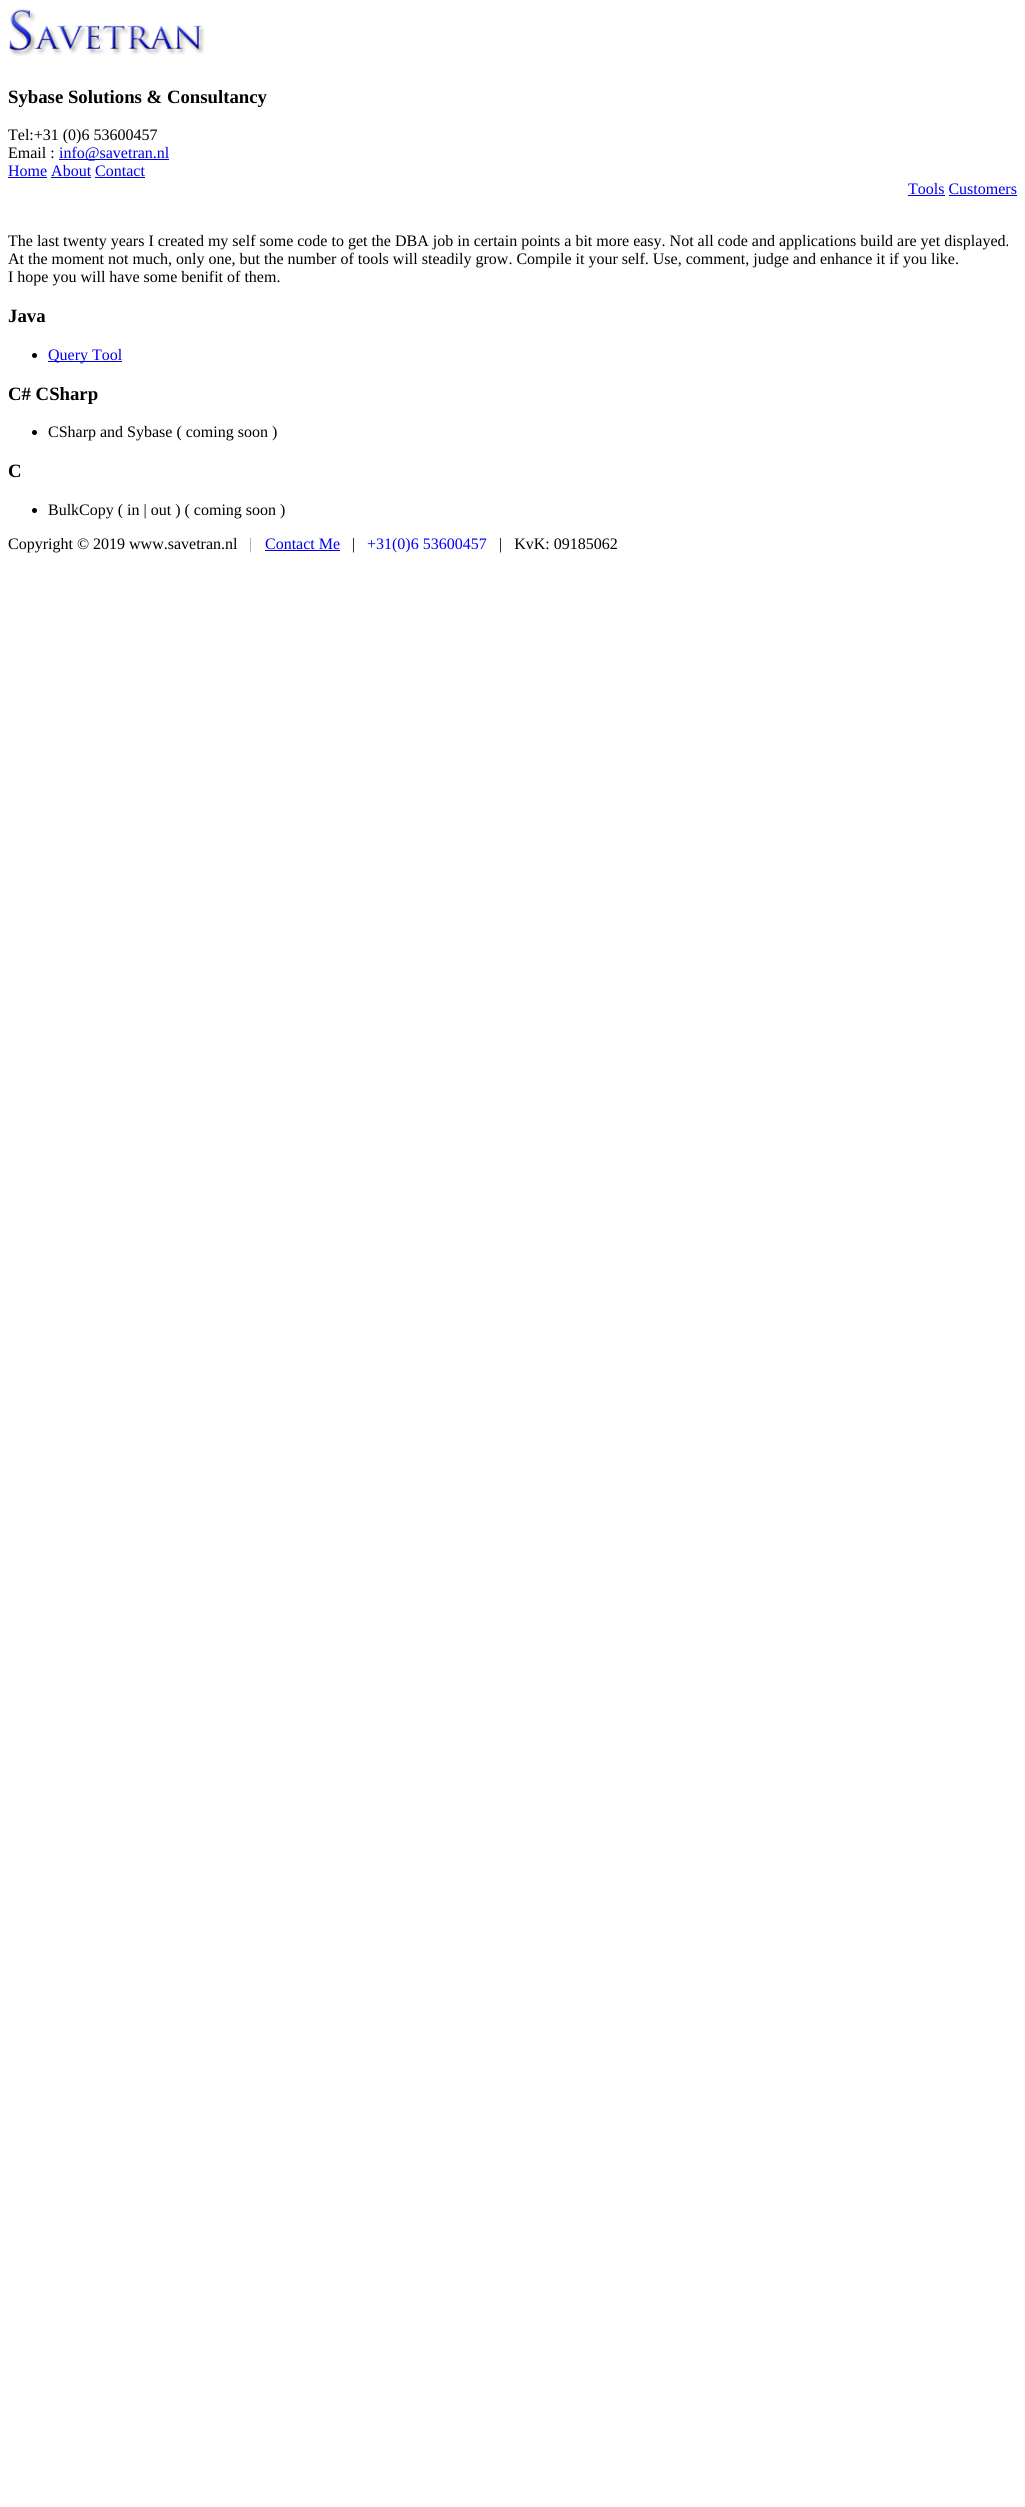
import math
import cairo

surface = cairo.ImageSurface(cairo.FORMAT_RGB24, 1025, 2507)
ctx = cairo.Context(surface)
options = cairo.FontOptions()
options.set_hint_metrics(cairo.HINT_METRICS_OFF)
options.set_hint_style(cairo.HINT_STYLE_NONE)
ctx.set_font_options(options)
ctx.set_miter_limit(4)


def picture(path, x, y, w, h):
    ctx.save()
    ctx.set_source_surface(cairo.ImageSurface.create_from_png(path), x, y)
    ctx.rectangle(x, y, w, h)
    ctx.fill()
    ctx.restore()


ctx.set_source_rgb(1, 1, 1)
ctx.paint()
picture("img1.png", 9, 9, 196, 47)
ctx.select_font_face("Liberation Serif", cairo.FONT_SLANT_NORMAL, cairo.FONT_WEIGHT_BOLD)
ctx.set_font_size(18.75)
ctx.set_source_rgb(0, 0, 0)
ctx.move_to(8, 103)
ctx.show_text("Sybase Solutions & Consultancy")
ctx.select_font_face("Liberation Serif")
ctx.set_font_size(16)
ctx.move_to(8, 140)
ctx.show_text("Tel:+31 (0)6 53600457")
ctx.move_to(8, 158)
ctx.show_text("Email :")
ctx.set_source_rgb(0, 0, 0.933)
ctx.rectangle(59, 159, 110, 1)
ctx.fill()
ctx.move_to(59, 158)
ctx.show_text("info@savetran.nl")
ctx.move_to(8, 176)
ctx.show_text("Home About Contact")
ctx.rectangle(8, 177, 39, 1)
ctx.fill()
ctx.rectangle(51, 177, 40, 1)
ctx.fill()
ctx.rectangle(95, 177, 50, 1)
ctx.fill()
ctx.move_to(908, 194)
ctx.show_text("Tools Customers")
ctx.rectangle(908, 195, 37, 1)
ctx.fill()
ctx.rectangle(949, 195, 68, 1)
ctx.fill()
ctx.set_source_rgb(0, 0, 0)
ctx.move_to(8, 246)
ctx.show_text("The last twenty years I created my self some code to get the DBA job in certain points a bit more easy. Not all code and applications build are yet displayed.")
ctx.move_to(8, 264)
ctx.show_text("At the moment not much, only one, but the number of tools will steadily grow. Compile it your self. Use, comment, judge and enhance it if you like.")
ctx.move_to(8, 282)
ctx.show_text("I hope you will have some benifit of them.")
ctx.select_font_face("Liberation Serif", cairo.FONT_SLANT_NORMAL, cairo.FONT_WEIGHT_BOLD)
ctx.set_font_size(18.75)
ctx.move_to(8, 322)
ctx.show_text("Java")
ctx.new_path()
ctx.arc(34.5, 355.5, 2.5, 0, 2 * math.pi)
ctx.fill()
ctx.set_source_rgb(0, 0, 0.933)
ctx.rectangle(48, 361, 74, 1)
ctx.fill()
ctx.select_font_face("Liberation Serif")
ctx.set_font_size(16)
ctx.move_to(48, 360)
ctx.show_text("Query Tool")
ctx.select_font_face("Liberation Serif", cairo.FONT_SLANT_NORMAL, cairo.FONT_WEIGHT_BOLD)
ctx.set_font_size(18.75)
ctx.set_source_rgb(0, 0, 0)
ctx.move_to(8, 400)
ctx.show_text("C# CSharp")
ctx.new_path()
ctx.arc(34.5, 432.5, 2.5, 0, 2 * math.pi)
ctx.fill()
ctx.select_font_face("Liberation Serif")
ctx.set_font_size(16)
ctx.move_to(48, 437)
ctx.show_text("CSharp and Sybase ( coming soon )")
ctx.select_font_face("Liberation Serif", cairo.FONT_SLANT_NORMAL, cairo.FONT_WEIGHT_BOLD)
ctx.set_font_size(18.75)
ctx.move_to(8, 477)
ctx.show_text("C")
ctx.new_path()
ctx.arc(34.5, 510.5, 2.5, 0, 2 * math.pi)
ctx.fill()
ctx.select_font_face("Liberation Serif")
ctx.set_font_size(16)
ctx.move_to(48, 515)
ctx.show_text("BulkCopy ( in | out ) ( coming soon )")
ctx.move_to(8, 549)
ctx.show_text("Copyright © 2019 www.savetran.nl   |")
ctx.set_source_rgb(0, 0, 0.933)
ctx.move_to(265, 549)
ctx.show_text("Contact Me")
ctx.rectangle(265, 550, 75, 1)
ctx.fill()
ctx.set_source_rgb(0, 0, 0)
ctx.move_to(352, 549)
ctx.show_text("|")
ctx.set_source_rgb(0, 0, 1)
ctx.move_to(367, 549)
ctx.show_text("+31(0)6 53600457")
ctx.set_source_rgb(0, 0, 0)
ctx.move_to(499, 549)
ctx.show_text("|   KvK: 09185062")
surface.write_to_png("page.png")
